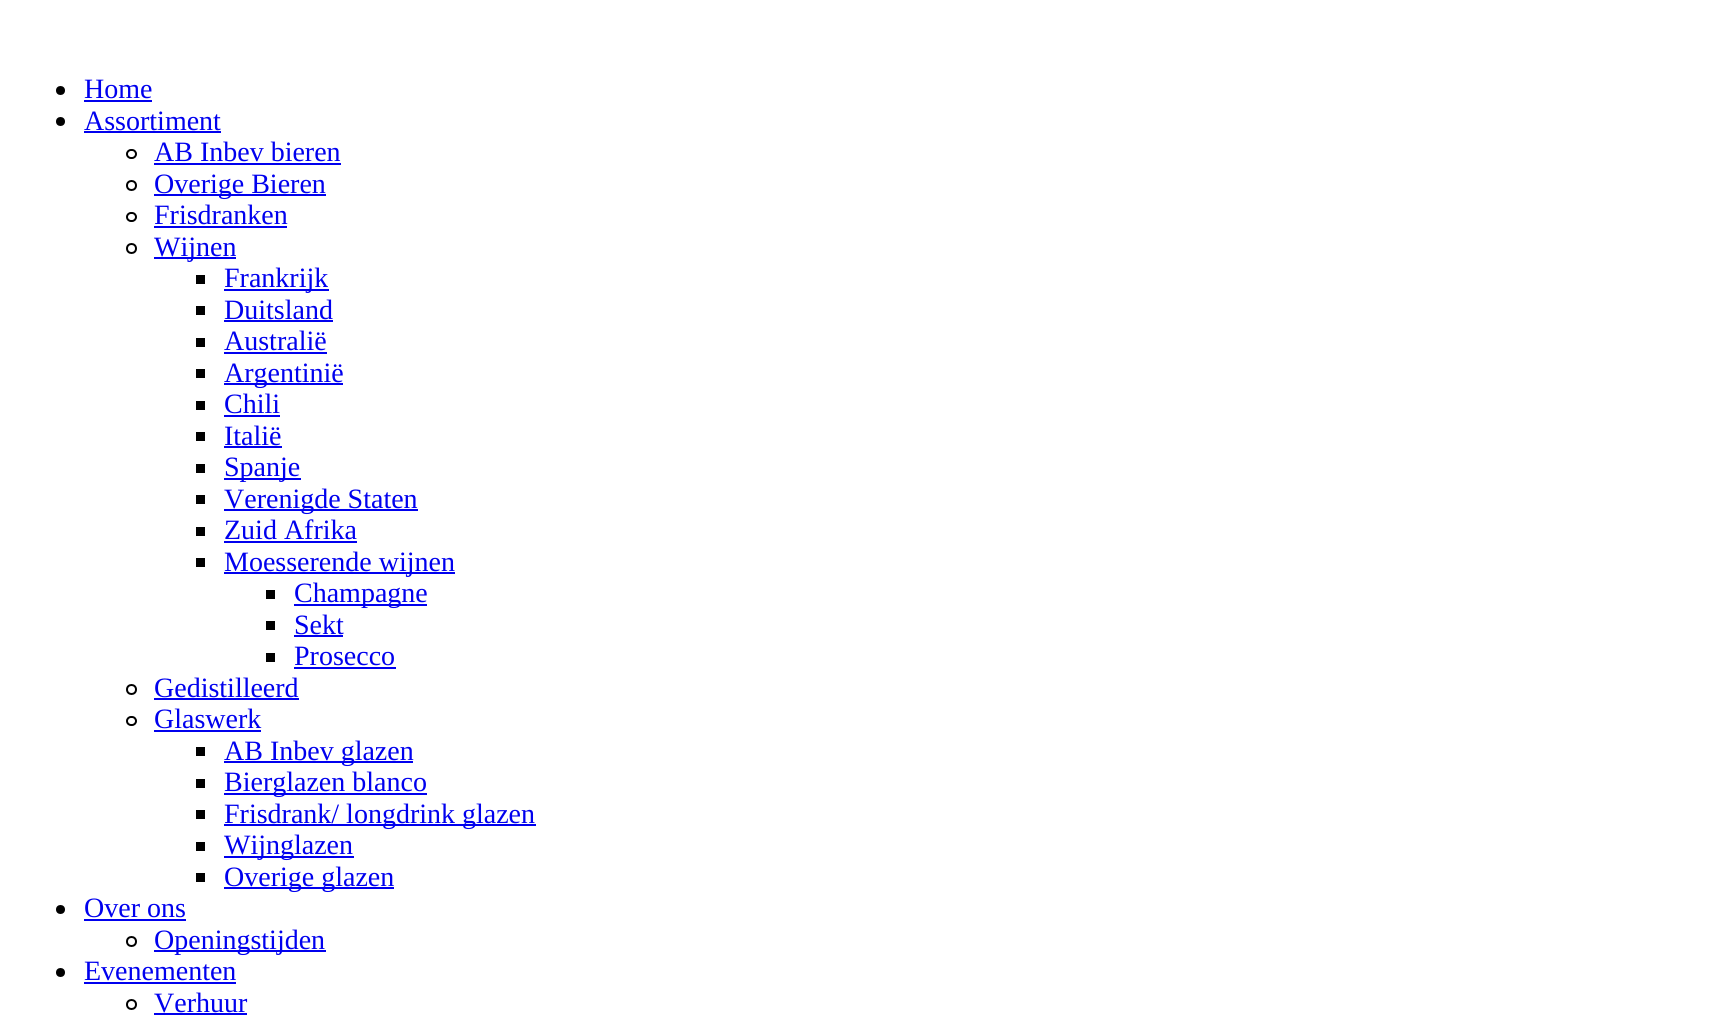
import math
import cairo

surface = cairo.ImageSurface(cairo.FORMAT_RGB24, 1722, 1029)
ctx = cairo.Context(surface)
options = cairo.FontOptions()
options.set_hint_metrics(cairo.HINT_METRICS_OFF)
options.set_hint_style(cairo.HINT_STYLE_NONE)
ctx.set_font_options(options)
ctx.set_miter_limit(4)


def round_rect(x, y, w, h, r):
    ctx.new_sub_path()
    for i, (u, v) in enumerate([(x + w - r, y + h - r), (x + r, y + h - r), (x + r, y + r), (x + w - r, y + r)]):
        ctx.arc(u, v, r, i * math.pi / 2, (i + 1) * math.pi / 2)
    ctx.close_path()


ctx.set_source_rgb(1, 1, 1)
ctx.paint()
ctx.set_source_rgb(0, 0, 0)
ctx.arc(60.5, 90.5, 4.5, 0, 2 * math.pi)
ctx.fill()
ctx.select_font_face("Liberation Serif")
ctx.set_font_size(28)
ctx.set_source_rgb(0, 0, 0.933)
ctx.move_to(84, 98)
ctx.show_text("Home")
ctx.rectangle(84, 100, 68, 2)
ctx.fill()
ctx.set_source_rgb(0, 0, 0)
ctx.arc(60.5, 121.5, 4.5, 0, 2 * math.pi)
ctx.fill()
ctx.set_source_rgb(0, 0, 0.933)
ctx.move_to(84, 130)
ctx.show_text("Assortiment")
ctx.rectangle(84, 131, 137, 2)
ctx.fill()
round_rect(127, 150, 9, 8, 4)
ctx.set_source_rgb(0, 0, 0)
ctx.stroke()
ctx.set_source_rgb(0, 0, 0.933)
ctx.move_to(154, 161)
ctx.show_text("AB Inbev bieren")
ctx.rectangle(154, 163, 187, 2)
ctx.fill()
ctx.arc(131.5, 185.5, 4.5, 0, 2 * math.pi)
ctx.set_source_rgb(0, 0, 0)
ctx.stroke()
ctx.set_source_rgb(0, 0, 0.933)
ctx.rectangle(154, 194, 172, 2)
ctx.fill()
ctx.move_to(154, 193)
ctx.show_text("Overige Bieren")
round_rect(127, 213, 9, 8, 4)
ctx.set_source_rgb(0, 0, 0)
ctx.stroke()
ctx.set_source_rgb(0, 0, 0.933)
ctx.move_to(154, 224)
ctx.show_text("Frisdranken")
ctx.rectangle(154, 226, 133, 2)
ctx.fill()
ctx.arc(131.5, 248.5, 4.5, 0, 2 * math.pi)
ctx.set_source_rgb(0, 0, 0)
ctx.stroke()
ctx.set_source_rgb(0, 0, 0.933)
ctx.rectangle(154, 257, 82, 2)
ctx.fill()
ctx.move_to(154, 256)
ctx.show_text("Wijnen")
ctx.set_source_rgb(0, 0, 0)
ctx.rectangle(196, 275, 9, 9)
ctx.fill()
ctx.set_source_rgb(0, 0, 0.933)
ctx.rectangle(224, 289, 105, 2)
ctx.fill()
ctx.move_to(224, 287)
ctx.show_text("Frankrijk")
ctx.set_source_rgb(0, 0, 0)
ctx.rectangle(196, 306, 9, 9)
ctx.fill()
ctx.set_source_rgb(0, 0, 0.933)
ctx.move_to(224, 319)
ctx.show_text("Duitsland")
ctx.rectangle(224, 320, 109, 2)
ctx.fill()
ctx.set_source_rgb(0, 0, 0)
ctx.rectangle(196, 338, 9, 9)
ctx.fill()
ctx.set_source_rgb(0, 0, 0.933)
ctx.move_to(224, 350)
ctx.show_text("Australië")
ctx.rectangle(224, 352, 103, 2)
ctx.fill()
ctx.set_source_rgb(0, 0, 0)
ctx.rectangle(196, 369, 9, 9)
ctx.fill()
ctx.set_source_rgb(0, 0, 0.933)
ctx.rectangle(224, 383, 119, 2)
ctx.fill()
ctx.move_to(224, 382)
ctx.show_text("Argentinië")
ctx.set_source_rgb(0, 0, 0)
ctx.rectangle(196, 401, 9, 9)
ctx.fill()
ctx.set_source_rgb(0, 0, 0.933)
ctx.move_to(224, 413)
ctx.show_text("Chili")
ctx.rectangle(224, 415, 56, 2)
ctx.fill()
ctx.set_source_rgb(0, 0, 0)
ctx.rectangle(196, 432, 9, 9)
ctx.fill()
ctx.set_source_rgb(0, 0, 0.933)
ctx.move_to(224, 445)
ctx.show_text("Italië")
ctx.rectangle(224, 446, 58, 2)
ctx.fill()
ctx.set_source_rgb(0, 0, 0)
ctx.rectangle(196, 464, 9, 9)
ctx.fill()
ctx.set_source_rgb(0, 0, 0.933)
ctx.rectangle(224, 478, 77, 2)
ctx.fill()
ctx.move_to(224, 476)
ctx.show_text("Spanje")
ctx.set_source_rgb(0, 0, 0)
ctx.rectangle(196, 495, 9, 9)
ctx.fill()
ctx.set_source_rgb(0, 0, 0.933)
ctx.rectangle(224, 509, 194, 2)
ctx.fill()
ctx.move_to(224, 508)
ctx.show_text("Verenigde Staten")
ctx.set_source_rgb(0, 0, 0)
ctx.rectangle(196, 527, 9, 9)
ctx.fill()
ctx.set_source_rgb(0, 0, 0.933)
ctx.move_to(224, 539)
ctx.show_text("Zuid Afrika")
ctx.rectangle(224, 541, 133, 2)
ctx.fill()
ctx.set_source_rgb(0, 0, 0)
ctx.rectangle(196, 558, 9, 9)
ctx.fill()
ctx.set_source_rgb(0, 0, 0.933)
ctx.rectangle(224, 572, 231, 2)
ctx.fill()
ctx.move_to(224, 571)
ctx.show_text("Moesserende wijnen")
ctx.set_source_rgb(0, 0, 0)
ctx.rectangle(266, 590, 9, 9)
ctx.fill()
ctx.set_source_rgb(0, 0, 0.933)
ctx.rectangle(294, 604, 133, 2)
ctx.fill()
ctx.move_to(294, 602)
ctx.show_text("Champagne")
ctx.set_source_rgb(0, 0, 0)
ctx.rectangle(266, 621, 9, 9)
ctx.fill()
ctx.set_source_rgb(0, 0, 0.933)
ctx.move_to(294, 634)
ctx.show_text("Sekt")
ctx.rectangle(294, 635, 49, 2)
ctx.fill()
ctx.set_source_rgb(0, 0, 0)
ctx.rectangle(266, 653, 9, 9)
ctx.fill()
ctx.set_source_rgb(0, 0, 0.933)
ctx.move_to(294, 665)
ctx.show_text("Prosecco")
ctx.rectangle(294, 667, 102, 2)
ctx.fill()
ctx.arc(131.5, 689.5, 4.5, 0, 2 * math.pi)
ctx.set_source_rgb(0, 0, 0)
ctx.stroke()
ctx.set_source_rgb(0, 0, 0.933)
ctx.move_to(154, 697)
ctx.show_text("Gedistilleerd")
ctx.rectangle(154, 698, 145, 2)
ctx.fill()
round_rect(127, 717, 9, 8, 4)
ctx.set_source_rgb(0, 0, 0)
ctx.stroke()
ctx.set_source_rgb(0, 0, 0.933)
ctx.move_to(154, 728)
ctx.show_text("Glaswerk")
ctx.rectangle(154, 730, 107, 2)
ctx.fill()
ctx.set_source_rgb(0, 0, 0)
ctx.rectangle(196, 747, 9, 9)
ctx.fill()
ctx.set_source_rgb(0, 0, 0.933)
ctx.rectangle(224, 761, 189, 2)
ctx.fill()
ctx.move_to(224, 760)
ctx.show_text("AB Inbev glazen")
ctx.set_source_rgb(0, 0, 0)
ctx.rectangle(196, 779, 9, 9)
ctx.fill()
ctx.set_source_rgb(0, 0, 0.933)
ctx.rectangle(224, 793, 203, 2)
ctx.fill()
ctx.move_to(224, 791)
ctx.show_text("Bierglazen blanco")
ctx.set_source_rgb(0, 0, 0)
ctx.rectangle(196, 810, 9, 9)
ctx.fill()
ctx.set_source_rgb(0, 0, 0.933)
ctx.rectangle(224, 824, 312, 2)
ctx.fill()
ctx.move_to(224, 823)
ctx.show_text("Frisdrank/ longdrink glazen")
ctx.set_source_rgb(0, 0, 0)
ctx.rectangle(196, 842, 9, 9)
ctx.fill()
ctx.set_source_rgb(0, 0, 0.933)
ctx.rectangle(224, 856, 130, 2)
ctx.fill()
ctx.move_to(224, 854)
ctx.show_text("Wijnglazen")
ctx.set_source_rgb(0, 0, 0)
ctx.rectangle(196, 873, 9, 9)
ctx.fill()
ctx.set_source_rgb(0, 0, 0.933)
ctx.rectangle(224, 887, 170, 2)
ctx.fill()
ctx.move_to(224, 886)
ctx.show_text("Overige glazen")
ctx.set_source_rgb(0, 0, 0)
ctx.new_path()
ctx.arc(60.5, 909.5, 4.5, 0, 2 * math.pi)
ctx.fill()
ctx.set_source_rgb(0, 0, 0.933)
ctx.move_to(84, 917)
ctx.show_text("Over ons")
ctx.rectangle(84, 919, 102, 2)
ctx.fill()
ctx.arc(131.5, 941.5, 4.5, 0, 2 * math.pi)
ctx.set_source_rgb(0, 0, 0)
ctx.stroke()
ctx.set_source_rgb(0, 0, 0.933)
ctx.rectangle(154, 950, 172, 2)
ctx.fill()
ctx.move_to(154, 949)
ctx.show_text("Openingstijden")
ctx.set_source_rgb(0, 0, 0)
ctx.new_path()
ctx.arc(60.5, 972.5, 4.5, 0, 2 * math.pi)
ctx.fill()
ctx.set_source_rgb(0, 0, 0.933)
ctx.move_to(84, 980)
ctx.show_text("Evenementen")
ctx.rectangle(84, 982, 152, 2)
ctx.fill()
ctx.arc(131.5, 1004.5, 4.5, 0, 2 * math.pi)
ctx.set_source_rgb(0, 0, 0)
ctx.stroke()
ctx.set_source_rgb(0, 0, 0.933)
ctx.move_to(154, 1012)
ctx.show_text("Verhuur")
ctx.rectangle(154, 1013, 93, 2)
ctx.fill()
surface.write_to_png("page.png")
